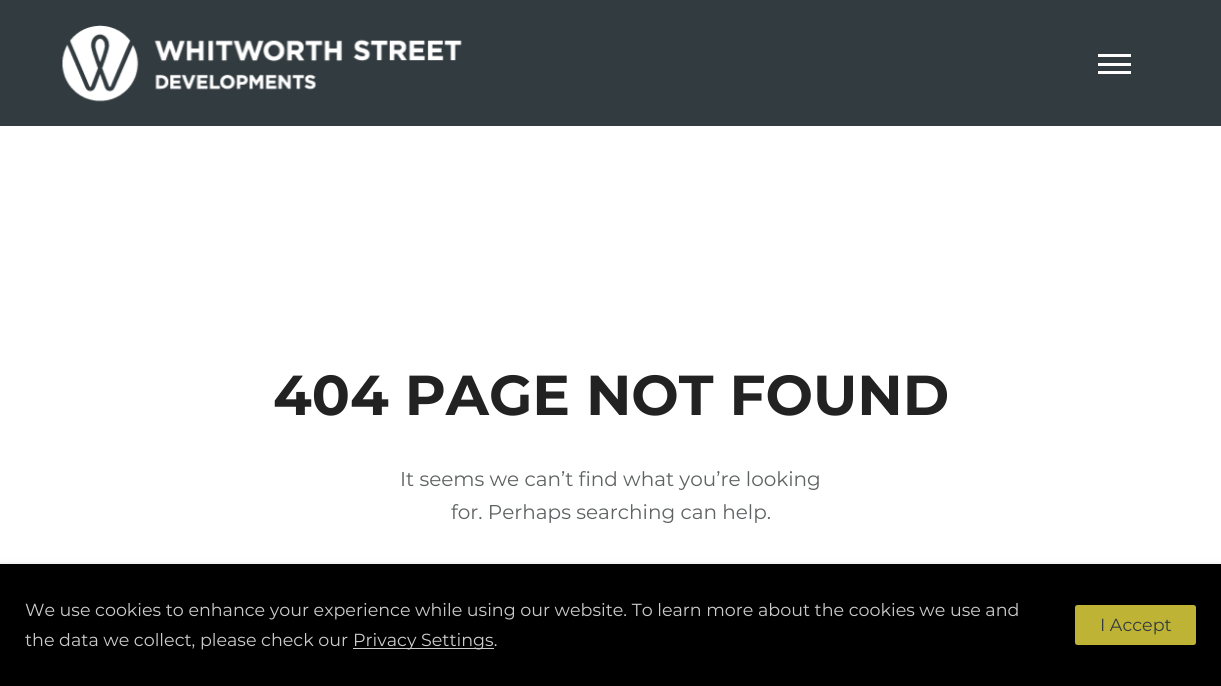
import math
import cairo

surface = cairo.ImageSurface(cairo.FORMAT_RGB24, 1221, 686)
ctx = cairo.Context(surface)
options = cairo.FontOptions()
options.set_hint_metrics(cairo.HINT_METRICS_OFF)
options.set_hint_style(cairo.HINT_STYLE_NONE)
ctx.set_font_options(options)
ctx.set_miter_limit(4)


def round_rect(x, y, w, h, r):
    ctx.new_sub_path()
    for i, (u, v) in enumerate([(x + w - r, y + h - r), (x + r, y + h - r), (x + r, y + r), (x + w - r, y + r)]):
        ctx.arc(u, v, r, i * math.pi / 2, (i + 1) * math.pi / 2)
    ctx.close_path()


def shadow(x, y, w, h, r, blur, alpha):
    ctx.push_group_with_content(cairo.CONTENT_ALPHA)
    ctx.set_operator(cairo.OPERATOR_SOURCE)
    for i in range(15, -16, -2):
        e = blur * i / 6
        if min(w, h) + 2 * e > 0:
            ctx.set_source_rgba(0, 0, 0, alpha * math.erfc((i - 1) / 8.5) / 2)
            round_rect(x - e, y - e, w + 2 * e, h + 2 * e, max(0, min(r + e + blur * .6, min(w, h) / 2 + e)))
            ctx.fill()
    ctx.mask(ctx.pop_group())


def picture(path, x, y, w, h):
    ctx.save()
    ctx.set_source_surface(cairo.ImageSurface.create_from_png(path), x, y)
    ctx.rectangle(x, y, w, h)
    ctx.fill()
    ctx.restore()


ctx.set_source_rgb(0.196, 0.231, 0.247)
ctx.paint()
picture("img1.png", 62, 25, 400, 77)
ctx.set_source_rgb(1, 1, 1)
ctx.rectangle(1098, 54, 33, 3)
ctx.fill()
ctx.rectangle(1098, 63, 33, 3)
ctx.fill()
ctx.rectangle(1098, 71, 33, 3)
ctx.fill()
ctx.rectangle(0, 126, 1221, 438)
ctx.fill()
ctx.select_font_face("Montserrat", cairo.FONT_SLANT_NORMAL, cairo.FONT_WEIGHT_BOLD)
ctx.set_font_size(56.25)
ctx.set_source_rgb(0.133, 0.133, 0.133)
ctx.move_to(273, 415)
ctx.show_text("404 PAGE NOT FOUND")
ctx.select_font_face("Montserrat")
ctx.set_font_size(20)
ctx.set_source_rgb(0.373, 0.384, 0.388)
ctx.move_to(400, 486)
ctx.show_text("It seems we can’t find what you’re looking")
ctx.move_to(451, 519)
ctx.show_text("for. Perhaps searching can help.")
ctx.set_source_rgb(0.047, 0.047, 0.051)
shadow(0, 563, 1221, 122, 0, 2.5, 0.1)
ctx.set_source_rgb(0, 0, 0)
ctx.rectangle(0, 564, 1221, 122)
ctx.fill()
ctx.set_font_size(17.5)
ctx.set_source_rgb(0.8, 0.8, 0.8)
ctx.move_to(25, 616)
ctx.show_text("We use cookies to enhance your experience while using our website. To learn more about the cookies we use and")
ctx.move_to(25, 646)
ctx.show_text("the data we collect, please check our")
ctx.rectangle(353, 648, 141, 1)
ctx.fill()
ctx.move_to(353, 646)
ctx.show_text("Privacy Settings.")
ctx.set_source_rgb(0.749, 0.702, 0.208)
round_rect(1075, 605, 121, 40, 2.5)
ctx.fill()
ctx.set_source_rgb(0.196, 0.231, 0.247)
ctx.move_to(1100, 631)
ctx.show_text("I Accept")
surface.write_to_png("page.png")
